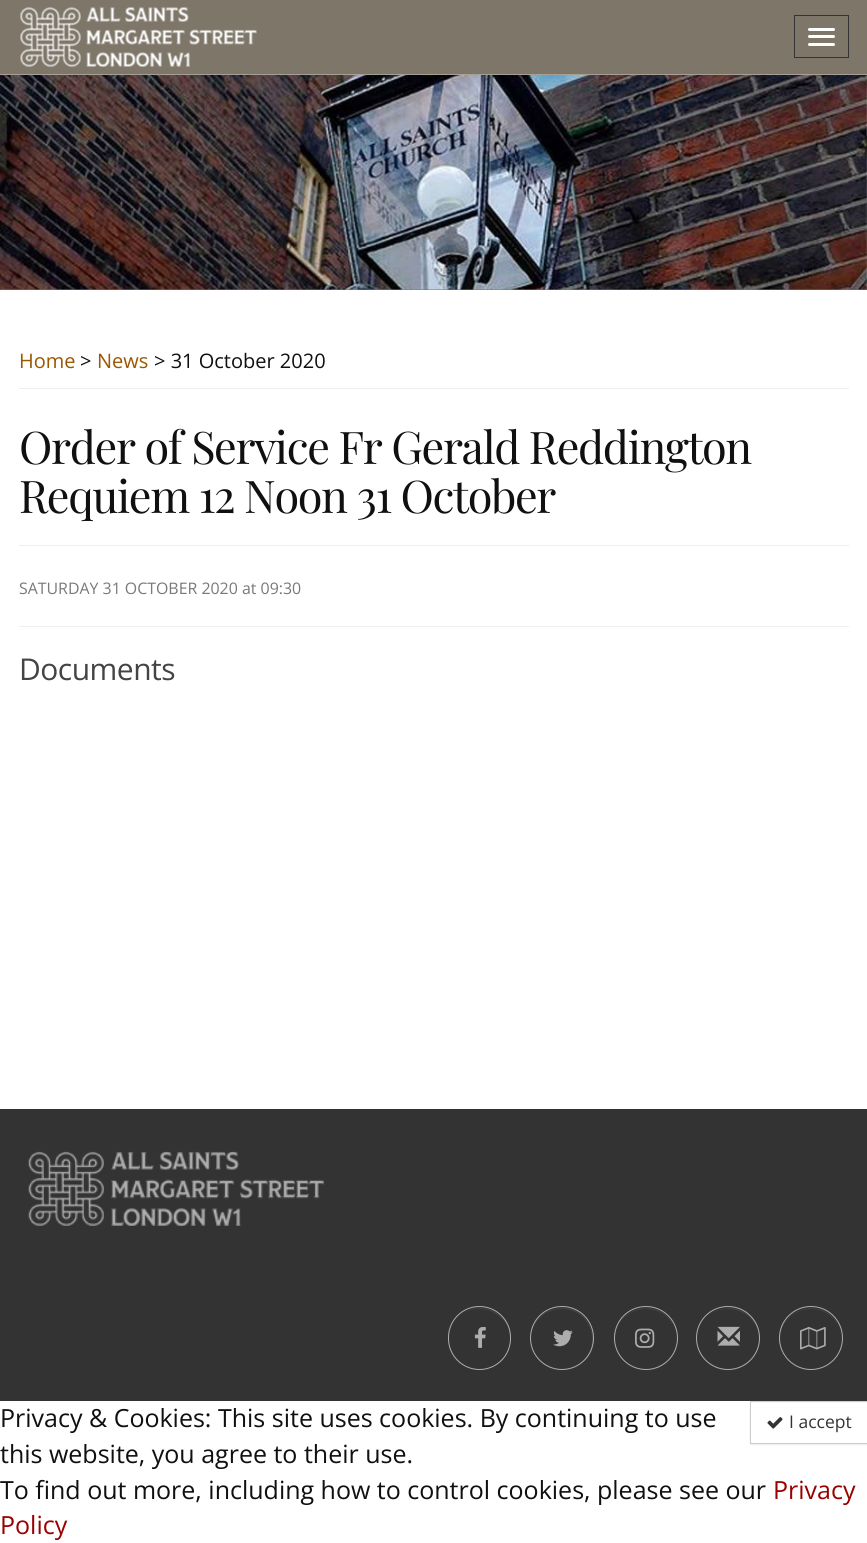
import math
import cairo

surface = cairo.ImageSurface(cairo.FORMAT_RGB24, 867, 1543)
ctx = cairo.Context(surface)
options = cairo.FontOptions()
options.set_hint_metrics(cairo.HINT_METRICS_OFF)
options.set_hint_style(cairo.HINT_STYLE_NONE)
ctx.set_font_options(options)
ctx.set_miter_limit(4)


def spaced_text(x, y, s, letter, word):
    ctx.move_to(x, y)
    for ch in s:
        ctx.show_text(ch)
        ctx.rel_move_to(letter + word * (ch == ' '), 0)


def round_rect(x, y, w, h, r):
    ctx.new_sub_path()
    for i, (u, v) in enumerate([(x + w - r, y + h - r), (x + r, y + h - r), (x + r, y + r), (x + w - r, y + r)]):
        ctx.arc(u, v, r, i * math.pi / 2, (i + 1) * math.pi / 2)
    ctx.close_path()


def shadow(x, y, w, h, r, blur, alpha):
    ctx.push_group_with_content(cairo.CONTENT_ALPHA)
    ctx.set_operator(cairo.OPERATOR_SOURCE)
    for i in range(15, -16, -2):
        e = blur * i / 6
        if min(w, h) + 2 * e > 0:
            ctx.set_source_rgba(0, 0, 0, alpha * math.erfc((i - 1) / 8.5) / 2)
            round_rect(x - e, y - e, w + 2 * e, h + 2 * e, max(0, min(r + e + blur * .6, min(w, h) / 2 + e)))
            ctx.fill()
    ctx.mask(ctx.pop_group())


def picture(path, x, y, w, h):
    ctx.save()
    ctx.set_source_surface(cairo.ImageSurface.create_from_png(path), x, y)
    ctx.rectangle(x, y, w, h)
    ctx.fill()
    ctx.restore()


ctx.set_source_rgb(1, 1, 1)
ctx.paint()
ctx.set_source_rgb(0.494, 0.463, 0.412)
ctx.rectangle(0, 0, 867, 74)
ctx.fill()
ctx.set_source_rgb(0.647, 0.624, 0.588)
ctx.rectangle(0, 74, 867, 1)
ctx.fill()
picture("img1.png", 20, 7, 237, 60)
ctx.rectangle(794.5, 15.5, 54, 42)
ctx.set_source_rgb(0.2, 0.2, 0.2)
ctx.set_line_width(1)
ctx.stroke()
ctx.set_source_rgb(1, 1, 1)
round_rect(808, 28, 27, 3, 1.5)
ctx.fill()
round_rect(808, 35, 27, 3, 1.5)
ctx.fill()
round_rect(808, 43, 27, 3, 1.5)
ctx.fill()
ctx.set_source_rgb(0.467, 0.467, 0.467)
ctx.rectangle(0, 289, 867, 1)
ctx.fill()
picture("img2.png", 0, 75, 867, 215)
ctx.select_font_face("Open Sans")
ctx.set_font_size(20)
ctx.set_source_rgb(0.612, 0.337, 0)
ctx.move_to(19, 368)
ctx.show_text("Home")
ctx.set_source_rgb(0.063, 0.063, 0.063)
ctx.move_to(80, 368)
ctx.show_text(">")
ctx.set_source_rgb(0.612, 0.337, 0)
ctx.move_to(97, 368)
ctx.show_text("News")
ctx.set_source_rgb(0.063, 0.063, 0.063)
ctx.move_to(154, 368)
ctx.show_text("> 31 October 2020")
ctx.set_source_rgb(0.933, 0.933, 0.933)
ctx.rectangle(19, 388, 830, 1)
ctx.fill()
ctx.rectangle(19, 545, 830, 1)
ctx.fill()
ctx.select_font_face("Playfair Display")
ctx.set_font_size(45)
ctx.set_source_rgb(0.063, 0.063, 0.063)
spaced_text(19, 464, "Order of Service Fr Gerald Reddington", -1.35, 0)
spaced_text(19, 513, "Requiem 12 Noon 31 October", -1.35, 0)
ctx.select_font_face("Open Sans")
ctx.set_font_size(15.9)
ctx.set_source_rgb(0.463, 0.478, 0.475)
ctx.move_to(19, 594)
ctx.show_text("SATURDAY 31 OCTOBER 2020 at 09:30")
ctx.set_source_rgb(0.933, 0.933, 0.933)
ctx.rectangle(19, 626, 830, 1)
ctx.fill()
ctx.set_font_size(30)
ctx.set_source_rgb(0.267, 0.267, 0.267)
spaced_text(19, 680, "Documents", -0.5, 0)
ctx.set_source_rgb(0.2, 0.2, 0.2)
ctx.rectangle(0, 1109, 867, 292)
ctx.fill()
picture("img3.png", 28, 1151, 296, 75)
ctx.set_source_rgb(0.271, 0.271, 0.271)
ctx.new_path()
ctx.move_to(479, 1309)
ctx.curve_to(496, 1309, 510, 1322, 510, 1339)
ctx.curve_to(510, 1333, 508, 1327, 505, 1321)
ctx.curve_to(488, 1297, 449, 1309, 449, 1339)
ctx.curve_to(449, 1322, 462, 1309, 479, 1309)
ctx.close_path()
ctx.fill()
round_rect(448.5, 1306.5, 62, 63, 31)
ctx.set_source_rgb(0.678, 0.678, 0.678)
ctx.stroke()
picture("img4.png", 474, 1327, 12, 21)
ctx.set_source_rgb(0.271, 0.271, 0.271)
ctx.new_path()
ctx.move_to(562, 1309)
ctx.curve_to(589, 1309, 601, 1340, 585, 1360)
ctx.curve_to(599, 1345, 594, 1319, 574, 1310)
ctx.curve_to(571, 1309, 566, 1308, 562, 1308)
ctx.curve_to(553, 1309, 546, 1311, 540, 1317)
ctx.curve_to(534, 1323, 531, 1331, 531, 1339)
ctx.curve_to(531, 1322, 545, 1309, 562, 1309)
ctx.close_path()
ctx.fill()
ctx.arc(562, 1338, 31.5, 0, 2 * math.pi)
ctx.set_source_rgb(0.678, 0.678, 0.678)
ctx.stroke()
picture("img5.png", 553, 1330, 20, 17)
ctx.set_source_rgb(0.271, 0.271, 0.271)
ctx.new_path()
ctx.move_to(646, 1309)
ctx.curve_to(663, 1309, 676, 1322, 676, 1339)
ctx.curve_to(676, 1333, 674, 1327, 671, 1321)
ctx.curve_to(654, 1297, 615, 1309, 615, 1339)
ctx.curve_to(615, 1322, 629, 1309, 646, 1309)
ctx.close_path()
ctx.fill()
ctx.arc(646, 1338, 31.5, 0, 2 * math.pi)
ctx.set_source_rgb(0.678, 0.678, 0.678)
ctx.stroke()
picture("img6.png", 635, 1328, 20, 20)
ctx.set_source_rgb(0.271, 0.271, 0.271)
ctx.new_path()
ctx.move_to(728, 1309)
ctx.curve_to(745, 1309, 759, 1322, 759, 1339)
ctx.curve_to(759, 1333, 757, 1327, 754, 1321)
ctx.curve_to(737, 1297, 698, 1309, 698, 1339)
ctx.curve_to(698, 1322, 711, 1309, 728, 1309)
ctx.close_path()
ctx.fill()
ctx.arc(728, 1338, 31.5, 0, 2 * math.pi)
ctx.set_source_rgb(0.678, 0.678, 0.678)
ctx.stroke()
picture("img7.png", 717, 1326, 23, 20)
ctx.set_source_rgb(0.271, 0.271, 0.271)
ctx.new_path()
ctx.move_to(811, 1309)
ctx.curve_to(828, 1309, 841, 1322, 841, 1339)
ctx.curve_to(841, 1333, 839, 1327, 836, 1321)
ctx.curve_to(819, 1297, 780, 1309, 780, 1339)
ctx.curve_to(780, 1322, 794, 1309, 811, 1309)
ctx.close_path()
ctx.fill()
ctx.arc(811, 1338, 31.5, 0, 2 * math.pi)
ctx.set_source_rgb(0.678, 0.678, 0.678)
ctx.stroke()
picture("img8.png", 800, 1327, 26, 23)
ctx.set_font_size(25)
ctx.set_source_rgb(0.063, 0.063, 0.063)
ctx.move_to(0, 1427)
ctx.show_text("Privacy & Cookies: This site uses cookies. By continuing to use")
ctx.set_source_rgb(0, 0, 0)
shadow(750, 1403, 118, 42, 0, 0.5, 0.07)
ctx.set_source_rgb(1, 1, 1)
ctx.rectangle(751, 1403, 116, 40)
ctx.fill()
ctx.rectangle(750.5, 1401.5, 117, 42)
ctx.set_source_rgb(0.8, 0.8, 0.8)
ctx.stroke()
picture("img9.png", 767, 1417, 16, 12)
ctx.set_font_size(17.5)
ctx.set_source_rgb(0.2, 0.2, 0.2)
ctx.move_to(789, 1428)
ctx.show_text("I accept")
ctx.set_font_size(25)
ctx.set_source_rgb(0.063, 0.063, 0.063)
ctx.move_to(0, 1463)
ctx.show_text("this website, you agree to their use.")
ctx.move_to(0, 1499)
ctx.show_text("To find out more, including how to control cookies, please see our")
ctx.set_source_rgb(0.6, 0, 0)
ctx.move_to(773, 1499)
ctx.show_text("Privacy")
ctx.move_to(0, 1534)
ctx.show_text("Policy")
surface.write_to_png("page.png")
